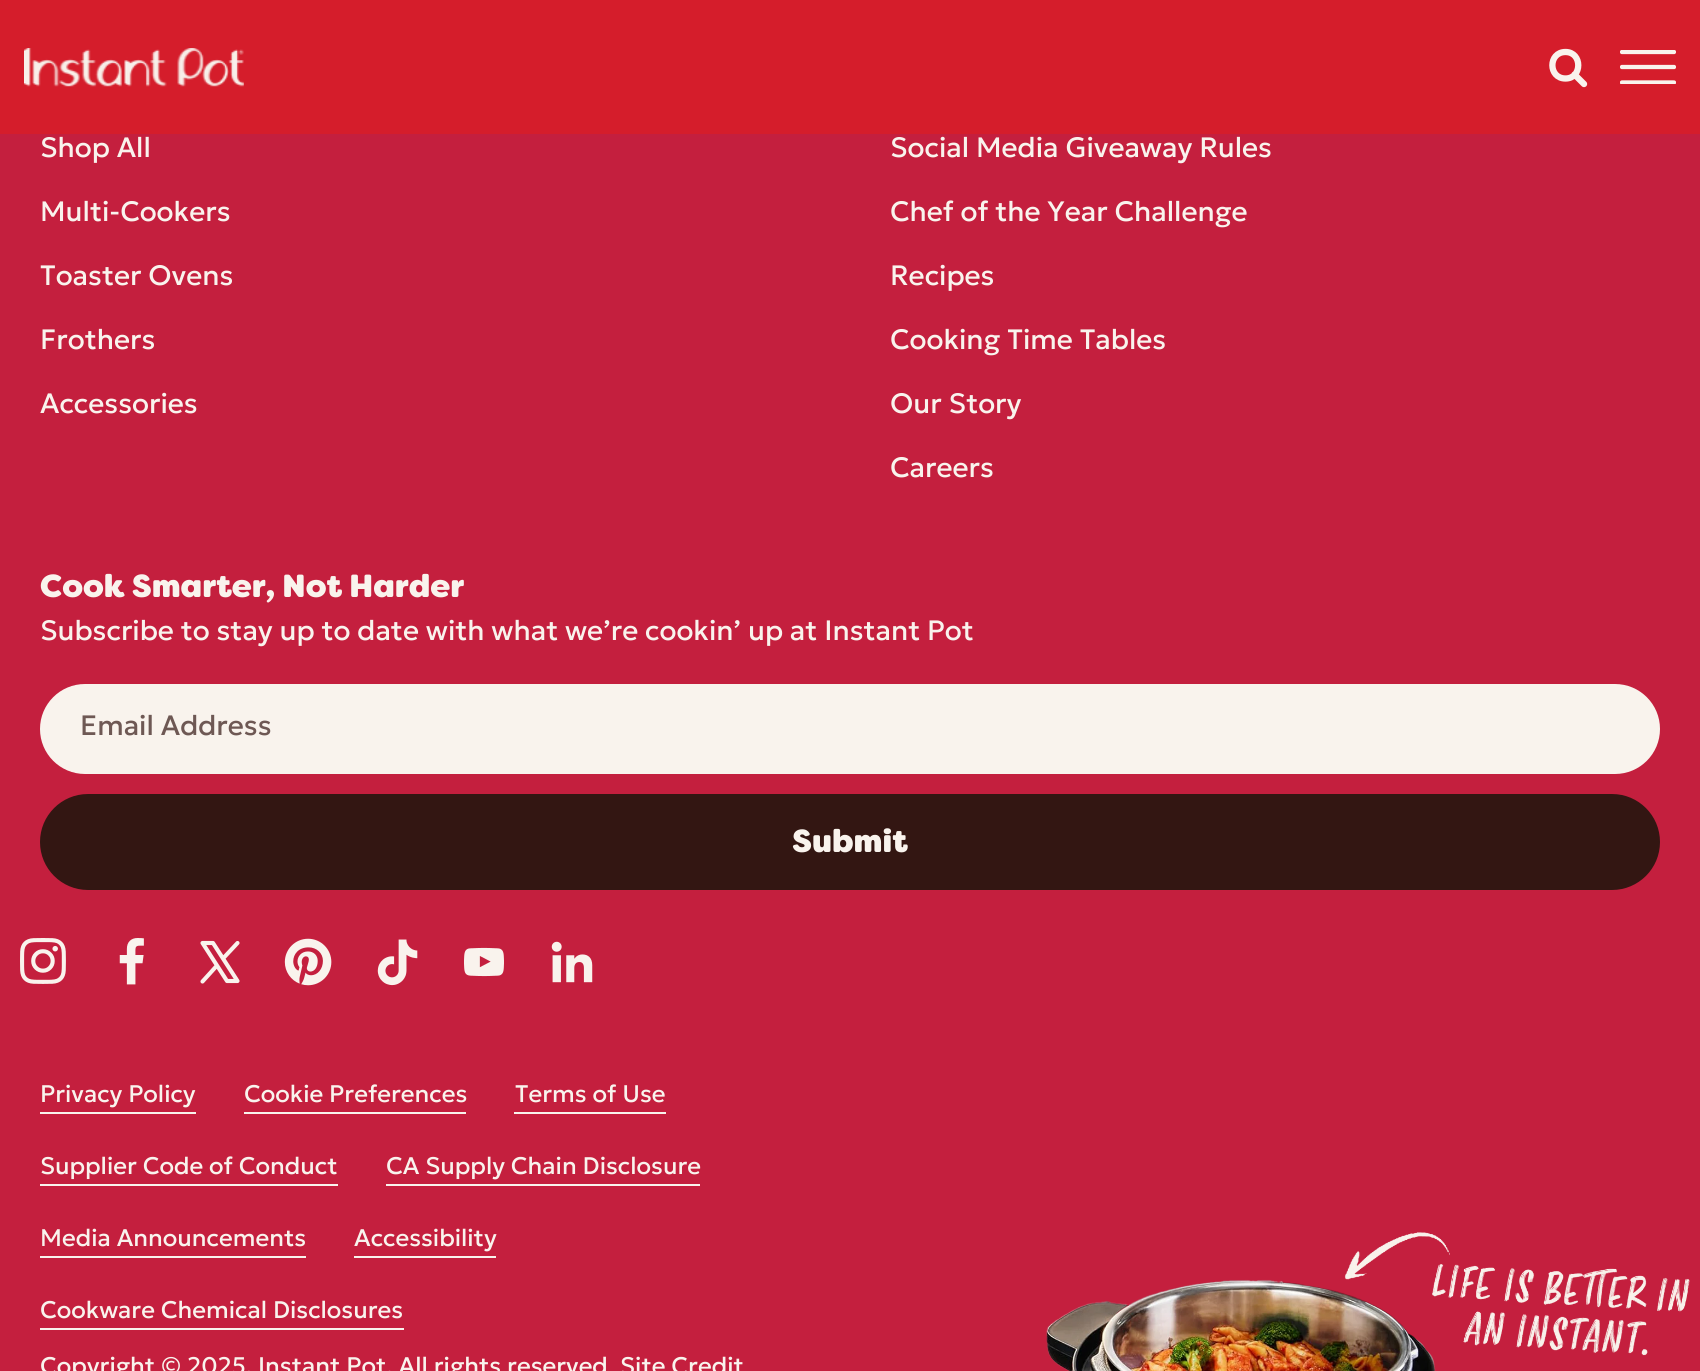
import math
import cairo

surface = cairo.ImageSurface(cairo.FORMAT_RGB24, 1700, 1371)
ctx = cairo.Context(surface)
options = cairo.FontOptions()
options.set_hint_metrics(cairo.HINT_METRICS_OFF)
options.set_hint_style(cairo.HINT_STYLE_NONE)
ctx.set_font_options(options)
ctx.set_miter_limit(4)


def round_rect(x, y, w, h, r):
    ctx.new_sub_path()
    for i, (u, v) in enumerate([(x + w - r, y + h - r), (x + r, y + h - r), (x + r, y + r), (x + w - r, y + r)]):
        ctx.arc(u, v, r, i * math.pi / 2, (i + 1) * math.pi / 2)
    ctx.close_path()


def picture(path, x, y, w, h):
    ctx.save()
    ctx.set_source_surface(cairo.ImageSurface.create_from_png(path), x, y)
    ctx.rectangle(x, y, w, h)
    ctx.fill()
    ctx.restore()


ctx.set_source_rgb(0.769, 0.122, 0.243)
ctx.paint()
ctx.set_source_rgb(0.835, 0.114, 0.169)
ctx.rectangle(0, 0, 1700, 134)
ctx.fill()
picture("img1.png", 24, 48, 220, 39)
ctx.new_path()
ctx.move_to(1565.5, 78.5)
ctx.curve_to(1582.5, 78.5, 1582.5, 52, 1565.5, 52)
ctx.curve_to(1548, 52, 1548, 78.5, 1565.5, 78.5)
ctx.close_path()
ctx.move_to(1574.5, 74.5)
ctx.line_to(1584, 84)
ctx.set_source_rgb(0.976, 0.953, 0.929)
ctx.set_line_width(6.3)
ctx.set_line_cap(cairo.LINE_CAP_ROUND)
ctx.set_line_join(cairo.LINE_JOIN_ROUND)
ctx.stroke()
ctx.save()
ctx.rectangle(1620, 50, 56, 34)
ctx.clip()
ctx.new_path()
ctx.move_to(1622, 52)
ctx.line_to(1674, 52)
ctx.move_to(1622, 67)
ctx.line_to(1674, 67)
ctx.move_to(1622, 82.5)
ctx.line_to(1674, 82.5)
ctx.set_line_width(4.3)
ctx.set_line_join(cairo.LINE_JOIN_MITER)
ctx.stroke()
ctx.restore()
ctx.select_font_face("Geologica")
ctx.set_font_size(28)
ctx.move_to(40, 157)
ctx.show_text("Shop All")
ctx.move_to(40, 221)
ctx.show_text("Multi-Cookers")
ctx.move_to(40, 285)
ctx.show_text("Toaster Ovens")
ctx.move_to(40, 349)
ctx.show_text("Frothers")
ctx.move_to(40, 413)
ctx.show_text("Accessories")
ctx.move_to(890, 157)
ctx.show_text("Social Media Giveaway Rules")
ctx.move_to(890, 221)
ctx.show_text("Chef of the Year Challenge")
ctx.move_to(890, 285)
ctx.show_text("Recipes")
ctx.move_to(890, 349)
ctx.show_text("Cooking Time Tables")
ctx.move_to(890, 413)
ctx.show_text("Our Story")
ctx.move_to(890, 477)
ctx.show_text("Careers")
ctx.select_font_face("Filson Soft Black")
ctx.set_font_size(32)
ctx.move_to(40, 597)
ctx.show_text("Cook Smarter, Not Harder")
ctx.select_font_face("Geologica")
ctx.set_font_size(28)
ctx.move_to(40, 640)
ctx.show_text("Subscribe to stay up to date with what we’re cookin’ up at Instant Pot")
round_rect(40, 684, 1620, 90, 45)
ctx.fill()
ctx.set_source_rgb(0.431, 0.345, 0.329)
ctx.move_to(80, 735)
ctx.show_text("Email Address")
ctx.set_source_rgb(0.2, 0.086, 0.071)
round_rect(42, 796, 1616, 92, 46)
ctx.fill_preserve()
ctx.set_line_width(4)
ctx.set_line_cap(cairo.LINE_CAP_BUTT)
ctx.set_line_join(cairo.LINE_JOIN_MITER)
ctx.stroke()
ctx.select_font_face("Filson Soft Black")
ctx.set_font_size(32)
ctx.set_source_rgb(0.976, 0.953, 0.929)
ctx.move_to(792, 852)
ctx.show_text("Submit")
picture("img2.png", 20, 938, 46, 46)
picture("img3.png", 119, 938, 25, 47)
ctx.new_path()
ctx.move_to(202.5, 943)
ctx.line_to(213, 943)
ctx.line_to(237.5, 981)
ctx.line_to(227, 981)
ctx.close_path()
ctx.move_to(217, 965.5)
ctx.line_to(202.5, 981.5)
ctx.move_to(237.5, 943)
ctx.line_to(223, 958.5)
ctx.set_line_width(4.1)
ctx.set_line_cap(cairo.LINE_CAP_ROUND)
ctx.set_line_join(cairo.LINE_JOIN_ROUND)
ctx.stroke()
picture("img4.png", 284, 938, 48, 48)
picture("img5.png", 377, 939, 41, 47)
picture("img6.png", 464, 947, 40, 30)
picture("img7.png", 551, 941, 42, 42)
ctx.select_font_face("Geologica")
ctx.set_font_size(24)
ctx.move_to(40, 1102)
ctx.show_text("Privacy Policy")
ctx.rectangle(40, 1112, 156, 2)
ctx.fill()
ctx.move_to(244, 1102)
ctx.show_text("Cookie Preferences")
ctx.rectangle(244, 1112, 222, 2)
ctx.fill()
ctx.move_to(515, 1102)
ctx.show_text("Terms of Use")
ctx.rectangle(514, 1112, 152, 2)
ctx.fill()
ctx.move_to(40, 1174)
ctx.show_text("Supplier Code of Conduct")
ctx.rectangle(40, 1184, 298, 2)
ctx.fill()
ctx.move_to(386, 1174)
ctx.show_text("CA Supply Chain Disclosure")
ctx.rectangle(386, 1184, 314, 2)
ctx.fill()
ctx.move_to(40, 1246)
ctx.show_text("Media Announcements")
ctx.rectangle(40, 1256, 266, 2)
ctx.fill()
ctx.move_to(354, 1246)
ctx.show_text("Accessibility")
ctx.rectangle(354, 1256, 142, 2)
ctx.fill()
ctx.move_to(40, 1318)
ctx.show_text("Cookware Chemical Disclosures")
ctx.rectangle(40, 1328, 364, 2)
ctx.fill()
ctx.move_to(40, 1374)
ctx.show_text("Copyright © 2025, Instant Pot. All rights reserved")
ctx.move_to(620, 1374)
ctx.show_text("Site Credit")
picture("img8.png", 1046, 1232, 644, 139)
surface.write_to_png("page.png")
